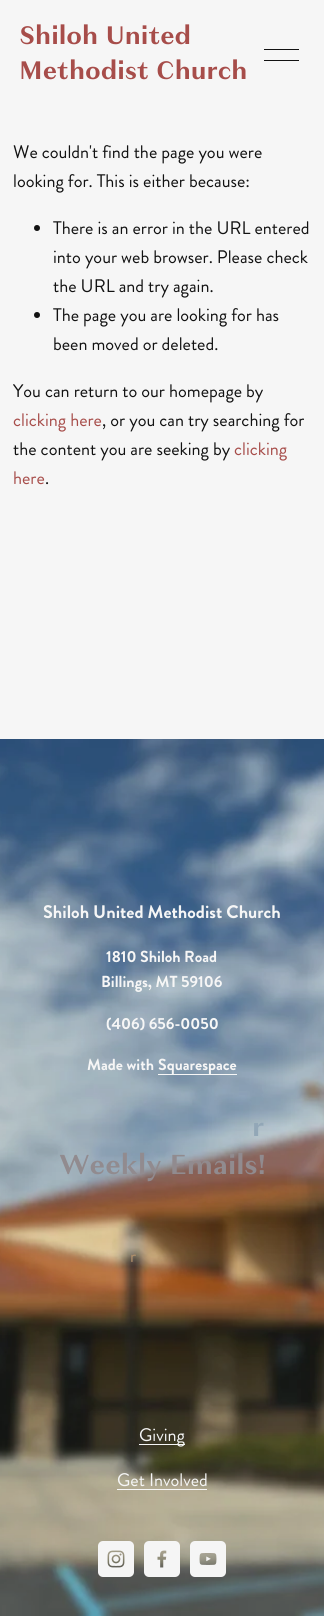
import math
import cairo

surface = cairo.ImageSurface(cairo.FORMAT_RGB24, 324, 1616)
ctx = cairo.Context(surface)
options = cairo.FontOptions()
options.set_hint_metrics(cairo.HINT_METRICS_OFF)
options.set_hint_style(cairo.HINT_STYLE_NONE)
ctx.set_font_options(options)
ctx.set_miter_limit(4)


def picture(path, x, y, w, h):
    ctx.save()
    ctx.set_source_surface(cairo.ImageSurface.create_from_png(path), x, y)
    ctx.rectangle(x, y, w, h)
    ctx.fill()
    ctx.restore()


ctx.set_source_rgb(0.961, 0.961, 0.961)
ctx.paint()
ctx.select_font_face("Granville", cairo.FONT_SLANT_NORMAL, cairo.FONT_WEIGHT_BOLD)
ctx.set_font_size(26.75)
ctx.set_source_rgb(0.655, 0.302, 0.29)
ctx.move_to(19, 44)
ctx.show_text("Shiloh United")
ctx.move_to(19, 79)
ctx.show_text("Methodist Church")
ctx.set_source_rgb(0.071, 0.071, 0.071)
ctx.rectangle(264, 49, 35, 1)
ctx.fill()
ctx.rectangle(264, 60, 35, 1)
ctx.fill()
ctx.select_font_face("Brandon Grotesque")
ctx.set_font_size(18.2)
ctx.move_to(13, 158)
ctx.show_text("We couldn't find the page you were")
ctx.move_to(13, 187)
ctx.show_text("looking for. This is either because:")
ctx.new_path()
ctx.arc(37, 228, 3, 0, 2 * math.pi)
ctx.fill()
ctx.move_to(53, 234)
ctx.show_text("There is an error in the URL entered")
ctx.move_to(53, 263)
ctx.show_text("into your web browser. Please check")
ctx.move_to(53, 292)
ctx.show_text("the URL and try again.")
ctx.new_path()
ctx.arc(37, 315, 3, 0, 2 * math.pi)
ctx.fill()
ctx.move_to(53, 321)
ctx.show_text("The page you are looking for has")
ctx.move_to(53, 350)
ctx.show_text("been moved or deleted.")
ctx.move_to(13, 397)
ctx.show_text("You can return to our homepage by")
ctx.set_source_rgb(0.655, 0.302, 0.29)
ctx.move_to(13, 426)
ctx.show_text("clicking here")
ctx.set_source_rgb(0.071, 0.071, 0.071)
ctx.move_to(102, 426)
ctx.show_text(", or you can try searching for")
ctx.move_to(13, 455)
ctx.show_text("the content you are seeking by")
ctx.set_source_rgb(0.655, 0.302, 0.29)
ctx.move_to(234, 455)
ctx.show_text("clicking")
ctx.move_to(13, 484)
ctx.show_text("here")
ctx.set_source_rgb(0.071, 0.071, 0.071)
ctx.move_to(45, 484)
ctx.show_text(".")
picture("img1.png", 0, 739, 324, 877)
ctx.select_font_face("Brandon Grotesque", cairo.FONT_SLANT_NORMAL, cairo.FONT_WEIGHT_BOLD)
ctx.set_source_rgb(0.961, 0.961, 0.961)
ctx.move_to(43, 918)
ctx.show_text("Shiloh United Methodist Church")
ctx.set_font_size(16)
ctx.move_to(106, 962)
ctx.show_text("1810 Shiloh Road")
ctx.move_to(101, 987)
ctx.show_text("Billings, MT 59106")
ctx.move_to(106, 1029)
ctx.show_text("(406) 656-0050")
ctx.move_to(87, 1070)
ctx.show_text("Made with")
ctx.rectangle(158, 1074, 79, 1)
ctx.fill()
ctx.move_to(158, 1070)
ctx.show_text("Squarespace")
ctx.select_font_face("Granville", cairo.FONT_SLANT_NORMAL, cairo.FONT_WEIGHT_BOLD)
ctx.set_font_size(29)
ctx.set_source_rgb(0.573, 0.655, 0.718)
ctx.move_to(252, 1136)
ctx.show_text("r")
ctx.set_source_rgb(0.569, 0.545, 0.561)
ctx.move_to(59, 1174)
ctx.show_text("Weekly Emails!")
ctx.select_font_face("Brandon Grotesque")
ctx.set_font_size(18.2)
ctx.set_source_rgb(0.694, 0.565, 0.42)
ctx.move_to(130, 1262)
ctx.show_text("r")
ctx.set_source_rgb(0.961, 0.961, 0.961)
ctx.rectangle(139, 1444, 46, 1)
ctx.fill()
ctx.move_to(139, 1441)
ctx.show_text("Giving")
ctx.move_to(117, 1486)
ctx.show_text("Get Involved")
ctx.rectangle(117, 1489, 90, 1)
ctx.fill()
picture("img2.png", 98, 1541, 36, 36)
picture("img3.png", 144, 1541, 36, 36)
picture("img4.png", 190, 1541, 36, 36)
surface.write_to_png("page.png")
